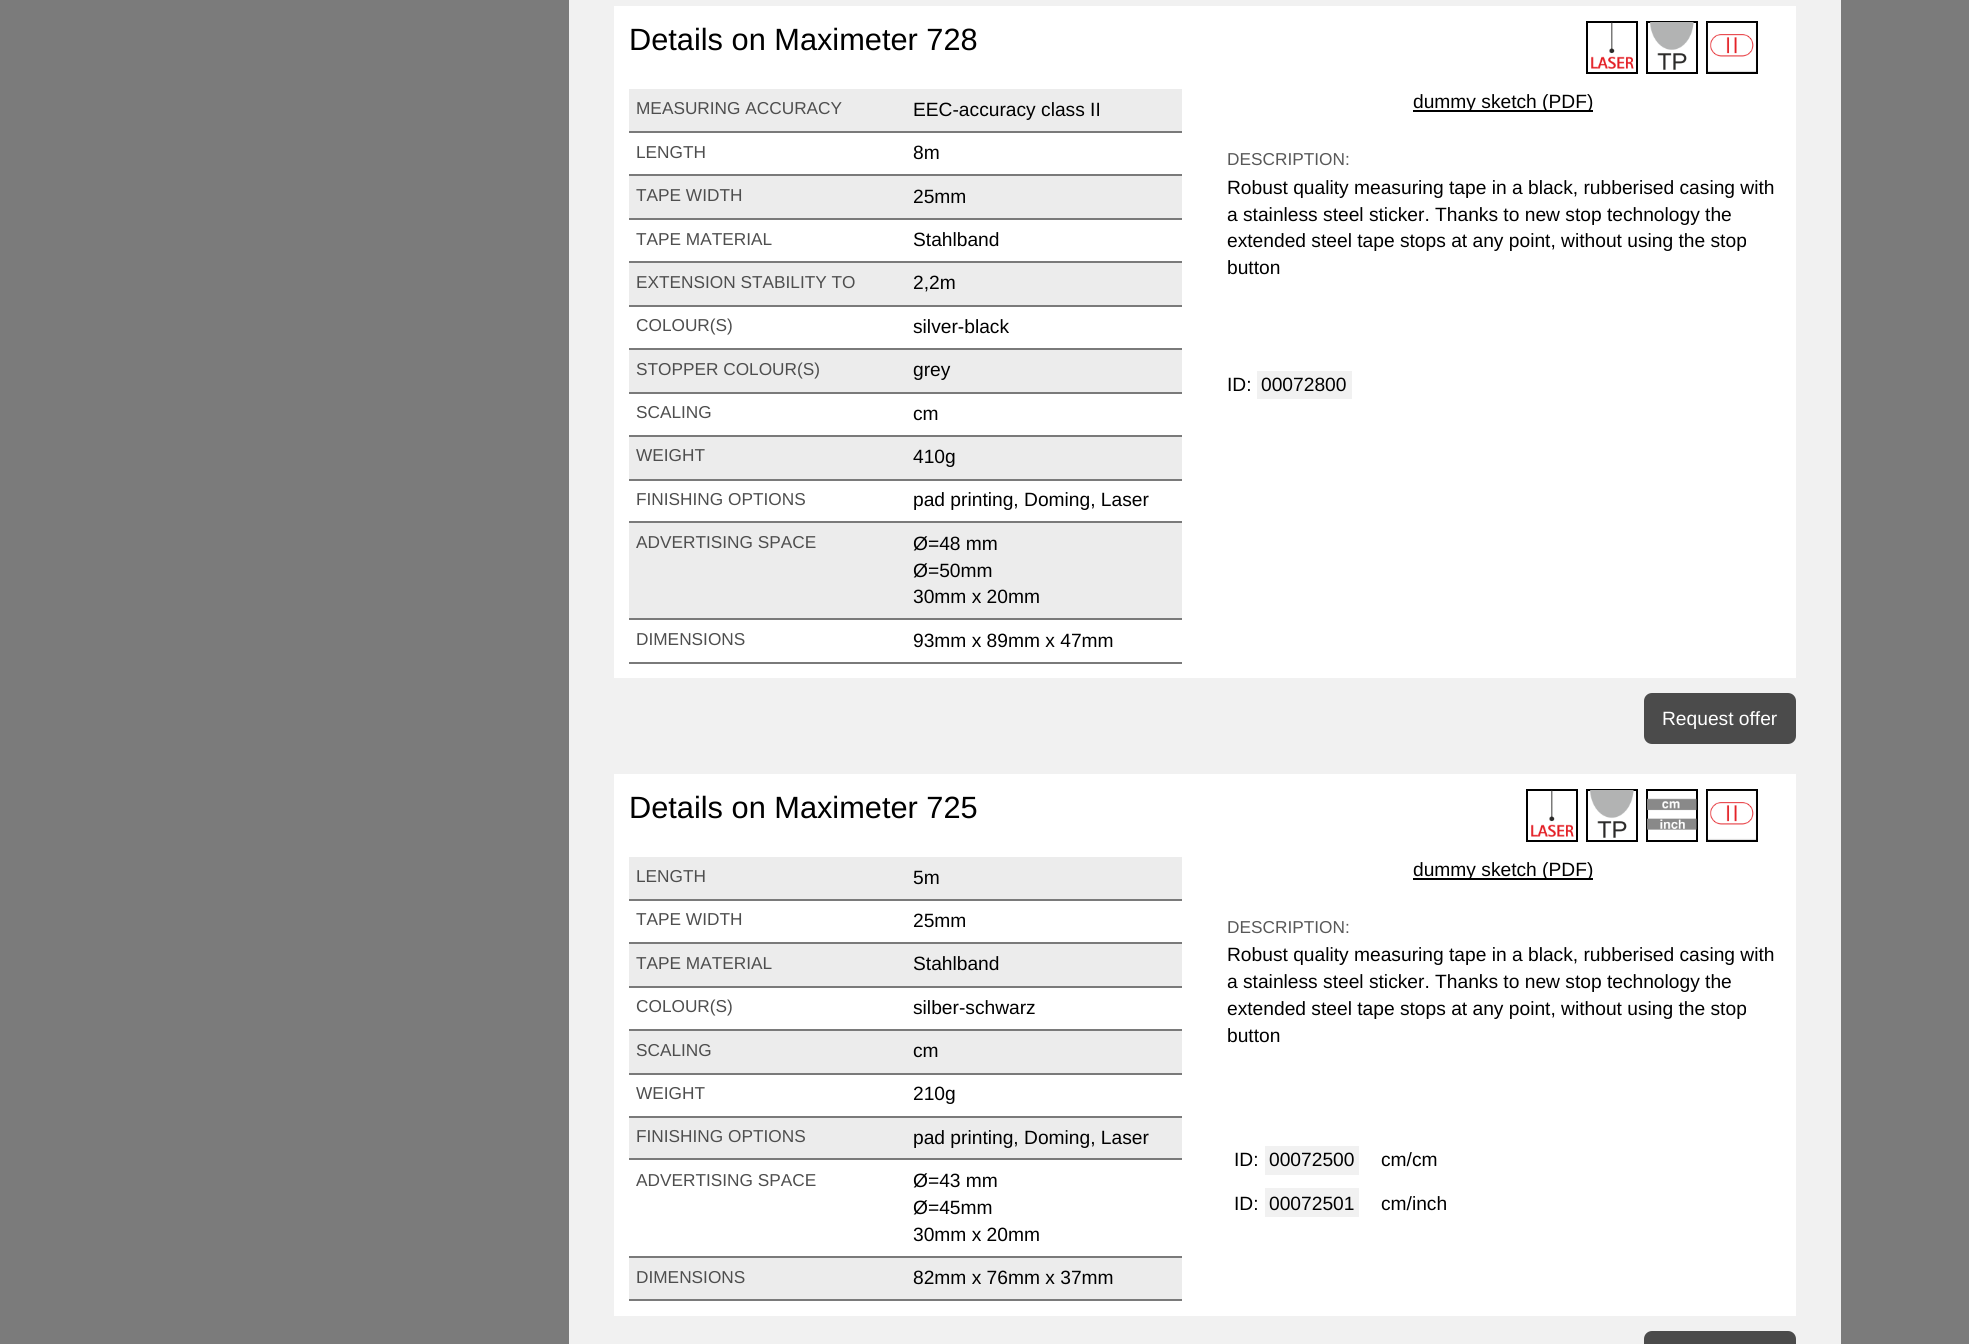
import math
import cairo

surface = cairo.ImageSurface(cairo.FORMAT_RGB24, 1969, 1344)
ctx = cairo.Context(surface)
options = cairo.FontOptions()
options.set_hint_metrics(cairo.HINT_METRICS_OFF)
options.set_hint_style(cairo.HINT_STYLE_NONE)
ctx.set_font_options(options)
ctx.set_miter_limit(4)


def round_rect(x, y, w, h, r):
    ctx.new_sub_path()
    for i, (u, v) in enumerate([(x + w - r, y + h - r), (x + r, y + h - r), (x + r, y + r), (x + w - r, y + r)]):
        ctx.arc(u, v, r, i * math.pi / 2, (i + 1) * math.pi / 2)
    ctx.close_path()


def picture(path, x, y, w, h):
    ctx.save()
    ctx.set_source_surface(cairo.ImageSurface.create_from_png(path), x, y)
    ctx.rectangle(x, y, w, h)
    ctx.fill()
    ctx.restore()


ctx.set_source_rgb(0.482, 0.482, 0.482)
ctx.paint()
ctx.set_source_rgb(0.945, 0.945, 0.945)
ctx.rectangle(569, 0, 1272, 1344)
ctx.fill()
ctx.set_source_rgb(1, 1, 1)
ctx.rectangle(614, 6, 1182, 672)
ctx.fill()
ctx.select_font_face("Liberation Sans")
ctx.set_font_size(30.75)
ctx.set_source_rgb(0, 0, 0)
ctx.move_to(629, 50)
ctx.show_text("Details on Maximeter 728")
ctx.rectangle(1587, 22, 50, 51)
ctx.stroke()
picture("img1.png", 1591, 22, 43, 47)
ctx.rectangle(1647, 22, 50, 51)
ctx.stroke()
picture("img2.png", 1650, 22, 44, 48)
ctx.rectangle(1707, 22, 50, 51)
ctx.stroke()
picture("img3.png", 1707, 22, 50, 50)
ctx.set_source_rgb(0.925, 0.925, 0.925)
ctx.rectangle(629, 89, 553, 42)
ctx.fill()
ctx.set_source_rgb(0.478, 0.478, 0.478)
ctx.rectangle(629, 131, 553, 2)
ctx.fill()
ctx.set_font_size(17.25)
ctx.set_source_rgb(0.306, 0.306, 0.306)
ctx.move_to(636, 114)
ctx.show_text("MEASURING ACCURACY")
ctx.set_font_size(19.2)
ctx.set_source_rgb(0, 0, 0)
ctx.move_to(913, 116)
ctx.show_text("EEC-accuracy class II")
ctx.set_source_rgb(0.478, 0.478, 0.478)
ctx.rectangle(629, 174, 553, 2)
ctx.fill()
ctx.set_font_size(17.25)
ctx.set_source_rgb(0.306, 0.306, 0.306)
ctx.move_to(636, 158)
ctx.show_text("LENGTH")
ctx.set_font_size(19.2)
ctx.set_source_rgb(0, 0, 0)
ctx.move_to(913, 159)
ctx.show_text("8m")
ctx.set_source_rgb(0.925, 0.925, 0.925)
ctx.rectangle(629, 176, 553, 42)
ctx.fill()
ctx.set_source_rgb(0.478, 0.478, 0.478)
ctx.rectangle(629, 218, 553, 2)
ctx.fill()
ctx.set_font_size(17.25)
ctx.set_source_rgb(0.306, 0.306, 0.306)
ctx.move_to(636, 201)
ctx.show_text("TAPE WIDTH")
ctx.set_font_size(19.2)
ctx.set_source_rgb(0, 0, 0)
ctx.move_to(913, 203)
ctx.show_text("25mm")
ctx.set_source_rgb(0.478, 0.478, 0.478)
ctx.rectangle(629, 261, 553, 2)
ctx.fill()
ctx.set_font_size(17.25)
ctx.set_source_rgb(0.306, 0.306, 0.306)
ctx.move_to(636, 245)
ctx.show_text("TAPE MATERIAL")
ctx.set_font_size(19.2)
ctx.set_source_rgb(0, 0, 0)
ctx.move_to(913, 246)
ctx.show_text("Stahlband")
ctx.set_source_rgb(0.925, 0.925, 0.925)
ctx.rectangle(629, 263, 553, 42)
ctx.fill()
ctx.set_source_rgb(0.478, 0.478, 0.478)
ctx.rectangle(629, 305, 553, 2)
ctx.fill()
ctx.set_font_size(17.25)
ctx.set_source_rgb(0.306, 0.306, 0.306)
ctx.move_to(636, 288)
ctx.show_text("EXTENSION STABILITY TO")
ctx.set_font_size(19.2)
ctx.set_source_rgb(0, 0, 0)
ctx.move_to(913, 289)
ctx.show_text("2,2m")
ctx.set_source_rgb(0.478, 0.478, 0.478)
ctx.rectangle(629, 348, 553, 2)
ctx.fill()
ctx.set_font_size(17.25)
ctx.set_source_rgb(0.306, 0.306, 0.306)
ctx.move_to(636, 331)
ctx.show_text("COLOUR(S)")
ctx.set_font_size(19.2)
ctx.set_source_rgb(0, 0, 0)
ctx.move_to(913, 333)
ctx.show_text("silver-black")
ctx.set_source_rgb(0.925, 0.925, 0.925)
ctx.rectangle(629, 350, 553, 42)
ctx.fill()
ctx.set_source_rgb(0.478, 0.478, 0.478)
ctx.rectangle(629, 392, 553, 2)
ctx.fill()
ctx.set_font_size(17.25)
ctx.set_source_rgb(0.306, 0.306, 0.306)
ctx.move_to(636, 375)
ctx.show_text("STOPPER COLOUR(S)")
ctx.set_font_size(19.2)
ctx.set_source_rgb(0, 0, 0)
ctx.move_to(913, 376)
ctx.show_text("grey")
ctx.set_source_rgb(0.478, 0.478, 0.478)
ctx.rectangle(629, 435, 553, 2)
ctx.fill()
ctx.set_font_size(17.25)
ctx.set_source_rgb(0.306, 0.306, 0.306)
ctx.move_to(636, 418)
ctx.show_text("SCALING")
ctx.set_font_size(19.2)
ctx.set_source_rgb(0, 0, 0)
ctx.move_to(913, 420)
ctx.show_text("cm")
ctx.set_source_rgb(0.925, 0.925, 0.925)
ctx.rectangle(629, 437, 553, 42)
ctx.fill()
ctx.set_source_rgb(0.478, 0.478, 0.478)
ctx.rectangle(629, 479, 553, 2)
ctx.fill()
ctx.set_font_size(17.25)
ctx.set_source_rgb(0.306, 0.306, 0.306)
ctx.move_to(636, 461)
ctx.show_text("WEIGHT")
ctx.set_font_size(19.2)
ctx.set_source_rgb(0, 0, 0)
ctx.move_to(913, 463)
ctx.show_text("410g")
ctx.set_source_rgb(0.478, 0.478, 0.478)
ctx.rectangle(629, 521, 553, 2)
ctx.fill()
ctx.set_font_size(17.25)
ctx.set_source_rgb(0.306, 0.306, 0.306)
ctx.move_to(636, 505)
ctx.show_text("FINISHING OPTIONS")
ctx.set_font_size(19.2)
ctx.set_source_rgb(0, 0, 0)
ctx.move_to(913, 506)
ctx.show_text("pad printing, Doming, Laser")
ctx.set_source_rgb(0.925, 0.925, 0.925)
ctx.rectangle(629, 523, 553, 95)
ctx.fill()
ctx.set_source_rgb(0.478, 0.478, 0.478)
ctx.rectangle(629, 618, 553, 2)
ctx.fill()
ctx.set_font_size(17.25)
ctx.set_source_rgb(0.306, 0.306, 0.306)
ctx.move_to(636, 548)
ctx.show_text("ADVERTISING SPACE")
ctx.set_font_size(19.2)
ctx.set_source_rgb(0, 0, 0)
ctx.move_to(913, 550)
ctx.show_text("Ø=48 mm")
ctx.move_to(913, 577)
ctx.show_text("Ø=50mm")
ctx.move_to(913, 603)
ctx.show_text("30mm x 20mm")
ctx.set_source_rgb(0.478, 0.478, 0.478)
ctx.rectangle(629, 662, 553, 2)
ctx.fill()
ctx.set_font_size(17.25)
ctx.set_source_rgb(0.306, 0.306, 0.306)
ctx.move_to(636, 645)
ctx.show_text("DIMENSIONS")
ctx.set_font_size(19.2)
ctx.set_source_rgb(0, 0, 0)
ctx.move_to(913, 647)
ctx.show_text("93mm x 89mm x 47mm")
ctx.rectangle(1413, 110, 180, 2)
ctx.fill()
ctx.move_to(1413, 108)
ctx.show_text("dummy sketch (PDF)")
ctx.set_font_size(17.25)
ctx.set_source_rgb(0.345, 0.345, 0.345)
ctx.move_to(1227, 165)
ctx.show_text("DESCRIPTION:")
ctx.set_font_size(19.2)
ctx.set_source_rgb(0, 0, 0)
ctx.move_to(1227, 194)
ctx.show_text("Robust quality measuring tape in a black, rubberised casing with")
ctx.move_to(1227, 221)
ctx.show_text("a stainless steel sticker. Thanks to new stop technology the")
ctx.move_to(1227, 247)
ctx.show_text("extended steel tape stops at any point, without using the stop")
ctx.move_to(1227, 274)
ctx.show_text("button")
ctx.move_to(1227, 391)
ctx.show_text("ID:")
ctx.set_source_rgb(0.945, 0.945, 0.945)
ctx.rectangle(1257, 371, 95, 28)
ctx.fill()
ctx.set_source_rgb(0, 0, 0)
ctx.move_to(1261, 391)
ctx.show_text("00072800")
ctx.set_source_rgb(0.294, 0.294, 0.294)
round_rect(1644, 693, 152, 51, 8)
ctx.fill()
ctx.set_source_rgb(1, 1, 1)
ctx.move_to(1662, 725)
ctx.show_text("Request offer")
ctx.rectangle(614, 774, 1182, 542)
ctx.fill()
ctx.set_font_size(30.75)
ctx.set_source_rgb(0, 0, 0)
ctx.move_to(629, 818)
ctx.show_text("Details on Maximeter 725")
ctx.rectangle(1527, 790, 50, 51)
ctx.stroke()
picture("img1.png", 1531, 790, 43, 47)
ctx.rectangle(1587, 790, 50, 51)
ctx.stroke()
picture("img2.png", 1590, 790, 44, 48)
ctx.rectangle(1647, 790, 50, 51)
ctx.stroke()
picture("img4.png", 1647, 798, 50, 32)
ctx.rectangle(1707, 790, 50, 51)
ctx.stroke()
picture("img3.png", 1707, 790, 50, 50)
ctx.set_source_rgb(0.925, 0.925, 0.925)
ctx.rectangle(629, 857, 553, 42)
ctx.fill()
ctx.set_source_rgb(0.478, 0.478, 0.478)
ctx.rectangle(629, 899, 553, 2)
ctx.fill()
ctx.set_font_size(17.25)
ctx.set_source_rgb(0.306, 0.306, 0.306)
ctx.move_to(636, 882)
ctx.show_text("LENGTH")
ctx.set_font_size(19.2)
ctx.set_source_rgb(0, 0, 0)
ctx.move_to(913, 884)
ctx.show_text("5m")
ctx.set_source_rgb(0.478, 0.478, 0.478)
ctx.rectangle(629, 942, 553, 2)
ctx.fill()
ctx.set_font_size(17.25)
ctx.set_source_rgb(0.306, 0.306, 0.306)
ctx.move_to(636, 925)
ctx.show_text("TAPE WIDTH")
ctx.set_font_size(19.2)
ctx.set_source_rgb(0, 0, 0)
ctx.move_to(913, 927)
ctx.show_text("25mm")
ctx.set_source_rgb(0.925, 0.925, 0.925)
ctx.rectangle(629, 944, 553, 42)
ctx.fill()
ctx.set_source_rgb(0.478, 0.478, 0.478)
ctx.rectangle(629, 986, 553, 2)
ctx.fill()
ctx.set_font_size(17.25)
ctx.set_source_rgb(0.306, 0.306, 0.306)
ctx.move_to(636, 969)
ctx.show_text("TAPE MATERIAL")
ctx.set_font_size(19.2)
ctx.set_source_rgb(0, 0, 0)
ctx.move_to(913, 970)
ctx.show_text("Stahlband")
ctx.set_source_rgb(0.478, 0.478, 0.478)
ctx.rectangle(629, 1029, 553, 2)
ctx.fill()
ctx.set_font_size(17.25)
ctx.set_source_rgb(0.306, 0.306, 0.306)
ctx.move_to(636, 1012)
ctx.show_text("COLOUR(S)")
ctx.set_font_size(19.2)
ctx.set_source_rgb(0, 0, 0)
ctx.move_to(913, 1014)
ctx.show_text("silber-schwarz")
ctx.set_source_rgb(0.925, 0.925, 0.925)
ctx.rectangle(629, 1031, 553, 42)
ctx.fill()
ctx.set_source_rgb(0.478, 0.478, 0.478)
ctx.rectangle(629, 1073, 553, 2)
ctx.fill()
ctx.set_font_size(17.25)
ctx.set_source_rgb(0.306, 0.306, 0.306)
ctx.move_to(636, 1056)
ctx.show_text("SCALING")
ctx.set_font_size(19.2)
ctx.set_source_rgb(0, 0, 0)
ctx.move_to(913, 1057)
ctx.show_text("cm")
ctx.set_source_rgb(0.478, 0.478, 0.478)
ctx.rectangle(629, 1116, 553, 2)
ctx.fill()
ctx.set_font_size(17.25)
ctx.set_source_rgb(0.306, 0.306, 0.306)
ctx.move_to(636, 1099)
ctx.show_text("WEIGHT")
ctx.set_font_size(19.2)
ctx.set_source_rgb(0, 0, 0)
ctx.move_to(913, 1100)
ctx.show_text("210g")
ctx.set_source_rgb(0.925, 0.925, 0.925)
ctx.rectangle(629, 1118, 553, 40)
ctx.fill()
ctx.set_source_rgb(0.478, 0.478, 0.478)
ctx.rectangle(629, 1158, 553, 2)
ctx.fill()
ctx.set_font_size(17.25)
ctx.set_source_rgb(0.306, 0.306, 0.306)
ctx.move_to(636, 1142)
ctx.show_text("FINISHING OPTIONS")
ctx.set_font_size(19.2)
ctx.set_source_rgb(0, 0, 0)
ctx.move_to(913, 1144)
ctx.show_text("pad printing, Doming, Laser")
ctx.set_source_rgb(0.478, 0.478, 0.478)
ctx.rectangle(629, 1256, 553, 2)
ctx.fill()
ctx.set_font_size(17.25)
ctx.set_source_rgb(0.306, 0.306, 0.306)
ctx.move_to(636, 1186)
ctx.show_text("ADVERTISING SPACE")
ctx.set_font_size(19.2)
ctx.set_source_rgb(0, 0, 0)
ctx.move_to(913, 1187)
ctx.show_text("Ø=43 mm")
ctx.move_to(913, 1214)
ctx.show_text("Ø=45mm")
ctx.move_to(913, 1241)
ctx.show_text("30mm x 20mm")
ctx.set_source_rgb(0.925, 0.925, 0.925)
ctx.rectangle(629, 1258, 553, 41)
ctx.fill()
ctx.set_source_rgb(0.478, 0.478, 0.478)
ctx.rectangle(629, 1299, 553, 2)
ctx.fill()
ctx.set_font_size(17.25)
ctx.set_source_rgb(0.306, 0.306, 0.306)
ctx.move_to(636, 1283)
ctx.show_text("DIMENSIONS")
ctx.set_font_size(19.2)
ctx.set_source_rgb(0, 0, 0)
ctx.move_to(913, 1284)
ctx.show_text("82mm x 76mm x 37mm")
ctx.rectangle(1413, 878, 180, 2)
ctx.fill()
ctx.move_to(1413, 876)
ctx.show_text("dummy sketch (PDF)")
ctx.set_font_size(17.25)
ctx.set_source_rgb(0.345, 0.345, 0.345)
ctx.move_to(1227, 933)
ctx.show_text("DESCRIPTION:")
ctx.set_font_size(19.2)
ctx.set_source_rgb(0, 0, 0)
ctx.move_to(1227, 961)
ctx.show_text("Robust quality measuring tape in a black, rubberised casing with")
ctx.move_to(1227, 988)
ctx.show_text("a stainless steel sticker. Thanks to new stop technology the")
ctx.move_to(1227, 1015)
ctx.show_text("extended steel tape stops at any point, without using the stop")
ctx.move_to(1227, 1042)
ctx.show_text("button")
ctx.move_to(1234, 1166)
ctx.show_text("ID:")
ctx.set_source_rgb(0.945, 0.945, 0.945)
ctx.rectangle(1265, 1146, 94, 29)
ctx.fill()
ctx.set_source_rgb(0, 0, 0)
ctx.move_to(1269, 1166)
ctx.show_text("00072500")
ctx.move_to(1381, 1166)
ctx.show_text("cm/cm")
ctx.move_to(1234, 1210)
ctx.show_text("ID:")
ctx.set_source_rgb(0.945, 0.945, 0.945)
ctx.rectangle(1265, 1188, 94, 29)
ctx.fill()
ctx.set_source_rgb(0, 0, 0)
ctx.move_to(1269, 1210)
ctx.show_text("00072501")
ctx.move_to(1381, 1210)
ctx.show_text("cm/inch")
ctx.set_source_rgb(0.294, 0.294, 0.294)
round_rect(1644, 1331, 152, 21, 8)
ctx.fill()
surface.write_to_png("page.png")
